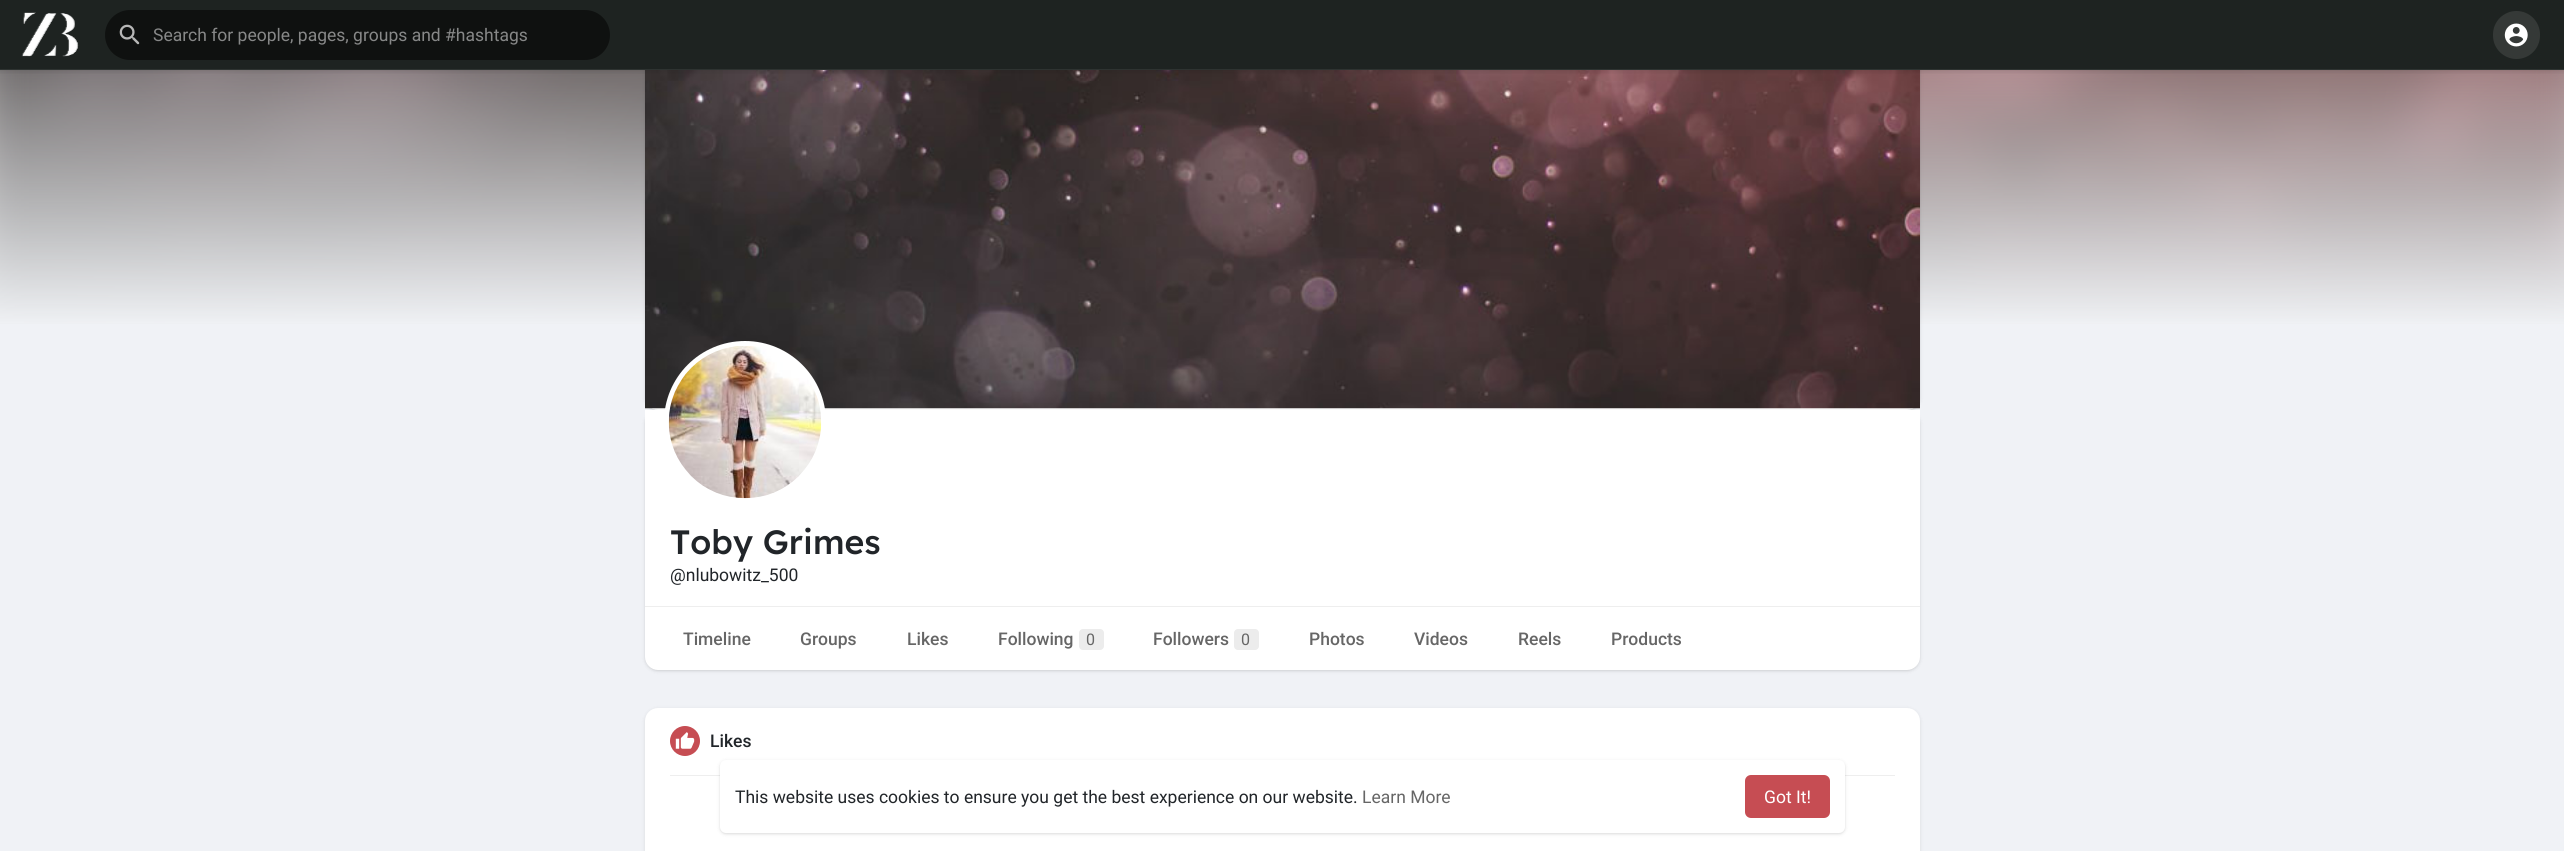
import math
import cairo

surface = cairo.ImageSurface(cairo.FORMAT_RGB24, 2564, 851)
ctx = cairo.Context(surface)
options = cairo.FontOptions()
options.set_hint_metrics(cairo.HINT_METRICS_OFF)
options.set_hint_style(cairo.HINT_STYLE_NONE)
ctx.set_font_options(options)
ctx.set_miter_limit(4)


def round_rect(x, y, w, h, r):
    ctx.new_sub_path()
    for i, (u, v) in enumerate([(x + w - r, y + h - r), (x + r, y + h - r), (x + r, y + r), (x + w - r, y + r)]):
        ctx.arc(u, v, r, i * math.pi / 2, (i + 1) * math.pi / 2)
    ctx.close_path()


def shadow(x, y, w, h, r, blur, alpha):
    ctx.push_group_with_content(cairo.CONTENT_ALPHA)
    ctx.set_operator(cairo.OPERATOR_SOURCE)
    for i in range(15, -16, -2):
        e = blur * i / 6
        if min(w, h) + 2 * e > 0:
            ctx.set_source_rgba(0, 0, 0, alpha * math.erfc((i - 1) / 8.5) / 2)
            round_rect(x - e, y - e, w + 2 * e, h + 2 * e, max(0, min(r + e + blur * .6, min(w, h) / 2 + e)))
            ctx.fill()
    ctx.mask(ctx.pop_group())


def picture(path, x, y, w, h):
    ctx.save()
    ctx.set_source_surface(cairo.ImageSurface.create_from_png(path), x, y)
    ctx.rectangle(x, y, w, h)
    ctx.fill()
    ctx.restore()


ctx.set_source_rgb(0.941, 0.949, 0.961)
ctx.paint()
picture("img6.png", 0, 70, 2564, 254)
gradient = cairo.LinearGradient(1283, -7.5, 1283, 410)
gradient.add_color_stop_rgba(0, 1, 1, 1, 0.1)
gradient.add_color_stop_rgba(0.8, 0.941, 0.949, 0.961, 1)
gradient.add_color_stop_rgba(1, 0.941, 0.949, 0.961, 1)
ctx.set_source(gradient)
ctx.rectangle(0, 70, 2564, 254)
ctx.fill()
ctx.set_source_rgb(0, 0, 0)
shadow(645, -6, 1275, 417, 13, 1, 0.06)
shadow(645, -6, 1275, 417, 13, 2, 0.1)
ctx.set_source_rgb(1, 1, 1)
round_rect(645, -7, 1275, 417, 13)
ctx.fill()
ctx.set_source_rgb(0.118, 0.137, 0.129)
ctx.rectangle(0, 0, 2564, 70)
ctx.fill()
picture("img1.png", 21, 12, 58, 45)
ctx.set_source_rgb(0.059, 0.067, 0.063)
round_rect(105, 10, 505, 50, 25)
ctx.fill()
picture("img2.png", 119, 24, 21, 21)
ctx.select_font_face("Roboto")
ctx.set_font_size(17.5)
ctx.set_source_rgb(0.529, 0.533, 0.533)
ctx.move_to(153, 41)
ctx.show_text("Search for people, pages, groups and #hashtags")
picture("img5.png", 645, 70, 1275, 339)
picture("img3.png", 0, 69, 2564, 5)
ctx.set_source_rgb(0.208, 0.224, 0.216)
round_rect(2493, 11, 47, 48, 23.5)
ctx.fill()
picture("img4.png", 2504, 23, 24, 24)
ctx.set_source_rgb(0, 0, 0)
shadow(645, 411, 1275, 260, 13, 1, 0.06)
shadow(645, 411, 1275, 260, 13, 2, 0.1)
ctx.set_source_rgb(1, 1, 1)
ctx.new_path()
ctx.move_to(645, 410)
ctx.line_to(1920, 410)
ctx.line_to(1920, 657)
ctx.curve_to(1920, 664, 1914, 670, 1907, 670)
ctx.line_to(658, 670)
ctx.curve_to(651, 670, 645, 664, 645, 657)
ctx.close_path()
ctx.fill()
round_rect(664, 341, 162, 163, 81)
ctx.fill()
picture("img7.png", 668, 346, 154, 153)
ctx.select_font_face("Readex Pro Medium")
ctx.set_font_size(33.75)
ctx.set_source_rgb(0.129, 0.145, 0.161)
ctx.move_to(670, 554)
ctx.show_text("Toby Grimes")
ctx.select_font_face("Roboto")
ctx.set_font_size(17.5)
ctx.move_to(670, 581)
ctx.show_text("@nlubowitz_500")
ctx.set_source_rgb(0.933, 0.933, 0.933)
ctx.rectangle(645, 606, 1275, 1)
ctx.fill()
ctx.select_font_face("Roboto Medium")
ctx.set_source_rgb(0.4, 0.4, 0.4)
ctx.move_to(683, 645)
ctx.show_text("Timeline")
ctx.move_to(800, 645)
ctx.show_text("Groups")
ctx.move_to(907, 645)
ctx.show_text("Likes")
ctx.move_to(998, 645)
ctx.show_text("Following")
ctx.set_source_rgb(0.922, 0.922, 0.922)
round_rect(1079, 629, 25, 21, 4)
ctx.fill()
ctx.select_font_face("Roboto")
ctx.set_font_size(16)
ctx.set_source_rgb(0.4, 0.4, 0.4)
ctx.move_to(1086, 645)
ctx.show_text("0")
ctx.select_font_face("Roboto Medium")
ctx.set_font_size(17.5)
ctx.move_to(1153, 645)
ctx.show_text("Followers")
ctx.set_source_rgb(0.922, 0.922, 0.922)
round_rect(1234, 629, 25, 21, 4)
ctx.fill()
ctx.select_font_face("Roboto")
ctx.set_font_size(16)
ctx.set_source_rgb(0.4, 0.4, 0.4)
ctx.move_to(1241, 645)
ctx.show_text("0")
ctx.select_font_face("Roboto Medium")
ctx.set_font_size(17.5)
ctx.move_to(1309, 645)
ctx.show_text("Photos")
ctx.move_to(1414, 645)
ctx.show_text("Videos")
ctx.move_to(1518, 645)
ctx.show_text("Reels")
ctx.move_to(1611, 645)
ctx.show_text("Products")
ctx.set_source_rgb(0, 0, 0)
shadow(645, 709, 1275, 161, 13, 2, 0.1)
ctx.set_source_rgb(1, 1, 1)
round_rect(645, 708, 1275, 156, 13)
ctx.fill()
ctx.set_source_rgb(0.933, 0.933, 0.933)
ctx.rectangle(670, 775, 1225, 1)
ctx.fill()
ctx.set_source_rgb(0.776, 0.302, 0.325)
ctx.arc(685, 741, 15, 0, 2 * math.pi)
ctx.fill()
picture("img8.png", 675, 732, 20, 17)
ctx.set_source_rgb(0.129, 0.145, 0.161)
ctx.move_to(710, 747)
ctx.show_text("Likes")
ctx.set_source_rgb(0, 0, 0)
shadow(720, 761, 1125, 73, 6, 1, 0.06)
shadow(720, 761, 1125, 73, 6, 2, 0.1)
ctx.set_source_rgb(1, 1, 1)
round_rect(720, 760, 1125, 73, 6)
ctx.fill()
ctx.select_font_face("Roboto")
ctx.set_source_rgb(0.129, 0.145, 0.161)
ctx.move_to(735, 803)
ctx.show_text("This website uses cookies to ensure you get the best experience on our website.")
ctx.set_source_rgb(0.4, 0.4, 0.4)
ctx.move_to(1362, 803)
ctx.show_text("Learn More")
ctx.set_source_rgb(0.776, 0.302, 0.325)
round_rect(1745, 775, 85, 43, 6)
ctx.fill()
ctx.set_source_rgb(1, 1, 1)
ctx.move_to(1764, 803)
ctx.show_text("Got It!")
surface.write_to_png("page.png")
